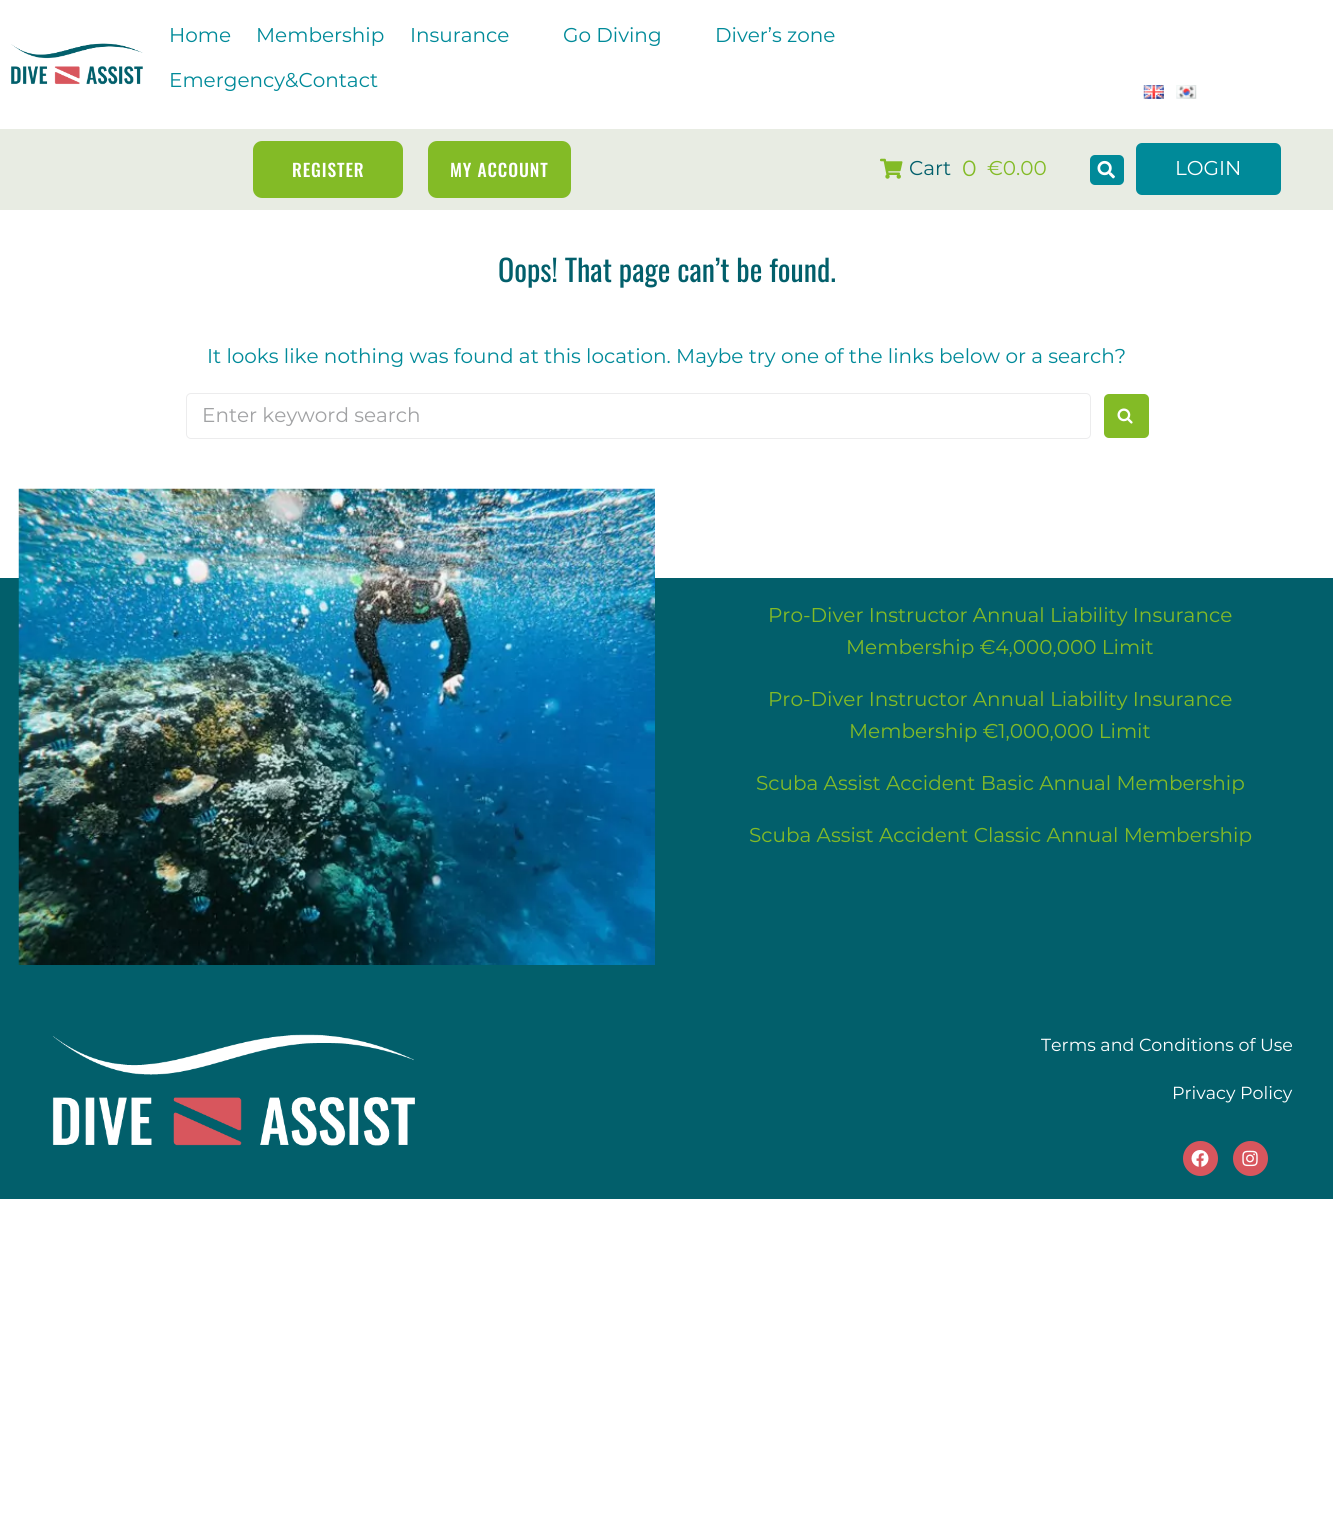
import math
import cairo

surface = cairo.ImageSurface(cairo.FORMAT_RGB24, 1333, 1531)
ctx = cairo.Context(surface)
options = cairo.FontOptions()
options.set_hint_metrics(cairo.HINT_METRICS_OFF)
options.set_hint_style(cairo.HINT_STYLE_NONE)
ctx.set_font_options(options)
ctx.set_miter_limit(4)


def spaced_text(x, y, s, letter, word):
    ctx.move_to(x, y)
    for ch in s:
        ctx.show_text(ch)
        ctx.rel_move_to(letter + word * (ch == ' '), 0)


def round_rect(x, y, w, h, r):
    ctx.new_sub_path()
    for i, (u, v) in enumerate([(x + w - r, y + h - r), (x + r, y + h - r), (x + r, y + r), (x + w - r, y + r)]):
        ctx.arc(u, v, r, i * math.pi / 2, (i + 1) * math.pi / 2)
    ctx.close_path()


def picture(path, x, y, w, h):
    ctx.save()
    ctx.set_source_surface(cairo.ImageSurface.create_from_png(path), x, y)
    ctx.rectangle(x, y, w, h)
    ctx.fill()
    ctx.restore()


ctx.set_source_rgb(1, 1, 1)
ctx.paint()
picture("img1.png", 11, 43, 132, 42)
ctx.select_font_face("Montserrat")
ctx.set_font_size(20)
ctx.set_source_rgb(0, 0.541, 0.6)
ctx.move_to(169, 42)
ctx.show_text("Home")
ctx.move_to(256, 42)
ctx.show_text("Membership")
ctx.move_to(410, 42)
ctx.show_text("Insurance")
ctx.move_to(563, 42)
ctx.show_text("Go Diving")
ctx.move_to(715, 42)
ctx.show_text("Diver’s zone")
ctx.move_to(169, 87)
ctx.show_text("Emergency&Contact")
picture("img2.png", 1143, 85, 21, 14)
picture("img3.png", 1176, 85, 21, 14)
ctx.set_source_rgb(0.91, 0.925, 0.89)
ctx.rectangle(0, 129, 1333, 81)
ctx.fill()
ctx.set_source_rgb(0.514, 0.733, 0.149)
round_rect(253, 141, 150, 57, 9)
ctx.fill()
ctx.select_font_face("Oswald Medium")
ctx.set_font_size(17.5)
ctx.set_source_rgb(1, 1, 1)
spaced_text(292, 177, "REGISTER", 0.9, 0)
ctx.set_source_rgb(0.514, 0.733, 0.149)
round_rect(428, 141, 143, 57, 9)
ctx.fill()
ctx.set_source_rgb(1, 1, 1)
spaced_text(450, 177, "MY ACCOUNT", 0.9, 0)
picture("img4.png", 880, 158, 23, 21)
ctx.select_font_face("Montserrat")
ctx.set_font_size(20)
ctx.set_source_rgb(0.008, 0.373, 0.42)
ctx.move_to(909, 175)
ctx.show_text("Cart")
ctx.set_font_size(22)
ctx.set_source_rgb(0.514, 0.733, 0.149)
ctx.move_to(962, 176)
ctx.show_text("0")
ctx.set_font_size(20)
ctx.move_to(987, 175)
ctx.show_text("€0.00")
ctx.set_source_rgb(0, 0.541, 0.6)
round_rect(1090, 155, 34, 30, 5)
ctx.fill()
picture("img5.png", 1097, 160, 18, 19)
round_rect(1136, 143, 145, 52, 6)
ctx.fill()
ctx.set_source_rgb(1, 1, 1)
ctx.move_to(1175, 175)
ctx.show_text("LOGIN")
ctx.select_font_face("Oswald")
ctx.set_font_size(30)
ctx.set_source_rgb(0.008, 0.373, 0.42)
ctx.move_to(498, 282)
ctx.show_text("Oops! That page can’t be found.")
ctx.select_font_face("Montserrat")
ctx.set_font_size(20)
ctx.set_source_rgb(0, 0.541, 0.6)
ctx.move_to(207, 363)
ctx.show_text("It looks like nothing was found at this location. Maybe try one of the links below or a search?")
round_rect(186.5, 393.5, 904, 45, 4.5)
ctx.set_source_rgb(0.922, 0.925, 0.929)
ctx.set_line_width(1)
ctx.stroke()
ctx.set_source_rgb(0.631, 0.635, 0.643)
ctx.move_to(202, 422)
ctx.show_text("Enter keyword search")
ctx.set_source_rgb(0.514, 0.733, 0.149)
round_rect(1104, 394, 45, 44, 5)
ctx.fill()
picture("img6.png", 1117, 408, 16, 16)
ctx.set_source_rgb(0.008, 0.373, 0.42)
ctx.rectangle(0, 578, 1333, 621)
ctx.fill()
picture("img7.png", 18, 488, 637, 477)
ctx.set_source_rgb(0.514, 0.733, 0.149)
ctx.move_to(768, 622)
ctx.show_text("Pro-Diver Instructor Annual Liability Insurance")
ctx.move_to(846, 654)
ctx.show_text("Membership €4,000,000 Limit")
ctx.move_to(768, 706)
ctx.show_text("Pro-Diver Instructor Annual Liability Insurance")
ctx.move_to(849, 738)
ctx.show_text("Membership €1,000,000 Limit")
ctx.move_to(756, 790)
ctx.show_text("Scuba Assist Accident Basic Annual Membership")
ctx.move_to(749, 842)
ctx.show_text("Scuba Assist Accident Classic Annual Membership")
picture("img8.png", 52, 1034, 363, 112)
ctx.set_font_size(17.5)
ctx.set_source_rgb(1, 1, 1)
ctx.move_to(1041, 1051)
ctx.show_text("Terms and Conditions of Use")
ctx.move_to(1172, 1099)
ctx.show_text("Privacy Policy")
ctx.set_source_rgb(0.847, 0.337, 0.365)
ctx.new_path()
ctx.arc(1200.5, 1158.5, 17.5, 0, 2 * math.pi)
ctx.fill()
picture("img9.png", 1191, 1150, 18, 17)
ctx.arc(1250.5, 1158.5, 17.5, 0, 2 * math.pi)
ctx.fill()
picture("img10.png", 1242, 1150, 16, 17)
surface.write_to_png("page.png")
